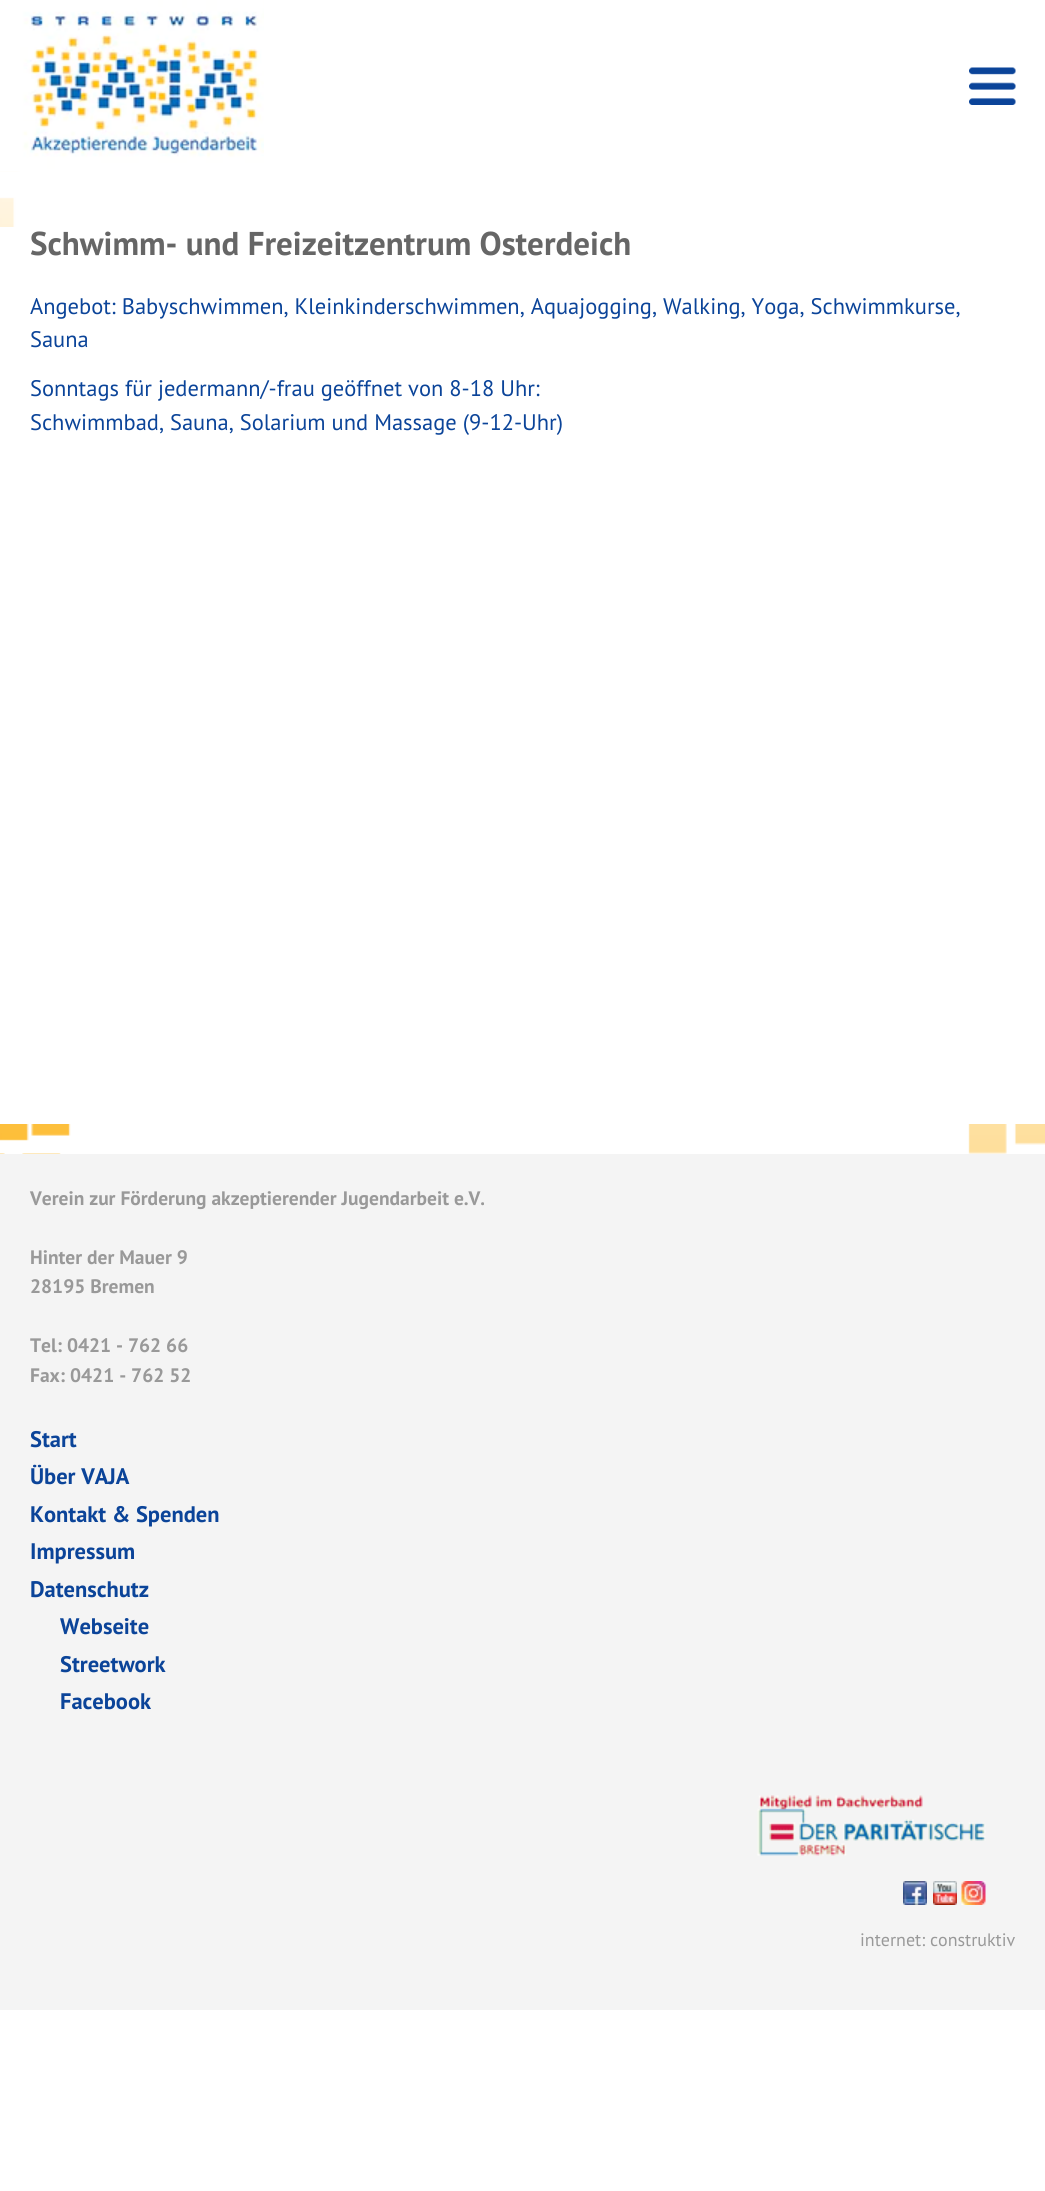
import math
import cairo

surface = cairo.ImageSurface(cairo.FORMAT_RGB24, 1045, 2191)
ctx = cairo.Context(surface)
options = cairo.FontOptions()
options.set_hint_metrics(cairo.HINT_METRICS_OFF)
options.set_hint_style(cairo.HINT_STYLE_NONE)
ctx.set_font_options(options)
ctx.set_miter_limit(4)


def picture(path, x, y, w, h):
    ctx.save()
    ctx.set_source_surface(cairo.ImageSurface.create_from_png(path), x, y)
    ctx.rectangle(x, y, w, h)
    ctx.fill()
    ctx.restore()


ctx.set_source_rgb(1, 1, 1)
ctx.paint()
picture("img1.png", 0, 0, 264, 171)
picture("img2.png", 969, 67, 47, 38)
picture("img3.png", 0, 171, 85, 983)
ctx.set_source_rgb(1, 1, 1)
ctx.rectangle(0, 227, 80, 897)
ctx.fill()
ctx.select_font_face("PT Sans", cairo.FONT_SLANT_NORMAL, cairo.FONT_WEIGHT_BOLD)
ctx.set_font_size(33)
ctx.set_source_rgb(0.4, 0.4, 0.4)
ctx.move_to(30, 255)
ctx.show_text("Schwimm- und Freizeitzentrum Osterdeich")
ctx.select_font_face("PT Sans")
ctx.set_font_size(22.5)
ctx.set_source_rgb(0.043, 0.267, 0.6)
ctx.move_to(30, 314)
ctx.show_text("Angebot: Babyschwimmen, Kleinkinderschwimmen, Aquajogging, Walking, Yoga, Schwimmkurse,")
ctx.move_to(30, 347)
ctx.show_text("Sauna")
ctx.move_to(30, 396)
ctx.show_text("Sonntags für jedermann/-frau geöffnet von 8-18 Uhr:")
ctx.move_to(30, 430)
ctx.show_text("Schwimmbad, Sauna, Solarium und Massage (9-12-Uhr)")
picture("img4.png", 968, 1124, 77, 30)
ctx.set_source_rgb(0.957, 0.957, 0.957)
ctx.rectangle(0, 1154, 1045, 856)
ctx.fill()
ctx.select_font_face("PT Sans", cairo.FONT_SLANT_NORMAL, cairo.FONT_WEIGHT_BOLD)
ctx.set_font_size(19.5)
ctx.set_source_rgb(0.6, 0.6, 0.6)
ctx.move_to(30, 1205)
ctx.show_text("Verein zur Förderung akzeptierender Jugendarbeit e.V.")
ctx.move_to(30, 1264)
ctx.show_text("Hinter der Mauer 9")
ctx.move_to(30, 1293)
ctx.show_text("28195 Bremen")
ctx.move_to(30, 1352)
ctx.show_text("Tel: 0421 - 762 66")
ctx.move_to(30, 1382)
ctx.show_text("Fax: 0421 - 762 52")
ctx.set_font_size(22.5)
ctx.set_source_rgb(0.043, 0.267, 0.6)
ctx.move_to(30, 1447)
ctx.show_text("Start")
ctx.move_to(30, 1484)
ctx.show_text("Über VAJA")
ctx.move_to(30, 1522)
ctx.show_text("Kontakt & Spenden")
ctx.move_to(30, 1559)
ctx.show_text("Impressum")
ctx.move_to(30, 1597)
ctx.show_text("Datenschutz")
ctx.move_to(60, 1634)
ctx.show_text("Webseite")
ctx.move_to(60, 1672)
ctx.show_text("Streetwork")
ctx.move_to(60, 1709)
ctx.show_text("Facebook")
picture("img5.png", 757, 1795, 229, 61)
picture("img6.png", 903, 1881, 24, 24)
picture("img7.png", 933, 1881, 24, 24)
picture("img8.png", 961, 1881, 25, 24)
ctx.select_font_face("PT Sans")
ctx.set_font_size(18)
ctx.set_source_rgb(0.6, 0.6, 0.6)
ctx.move_to(860, 1946)
ctx.show_text("internet: construktiv")
surface.write_to_png("page.png")
